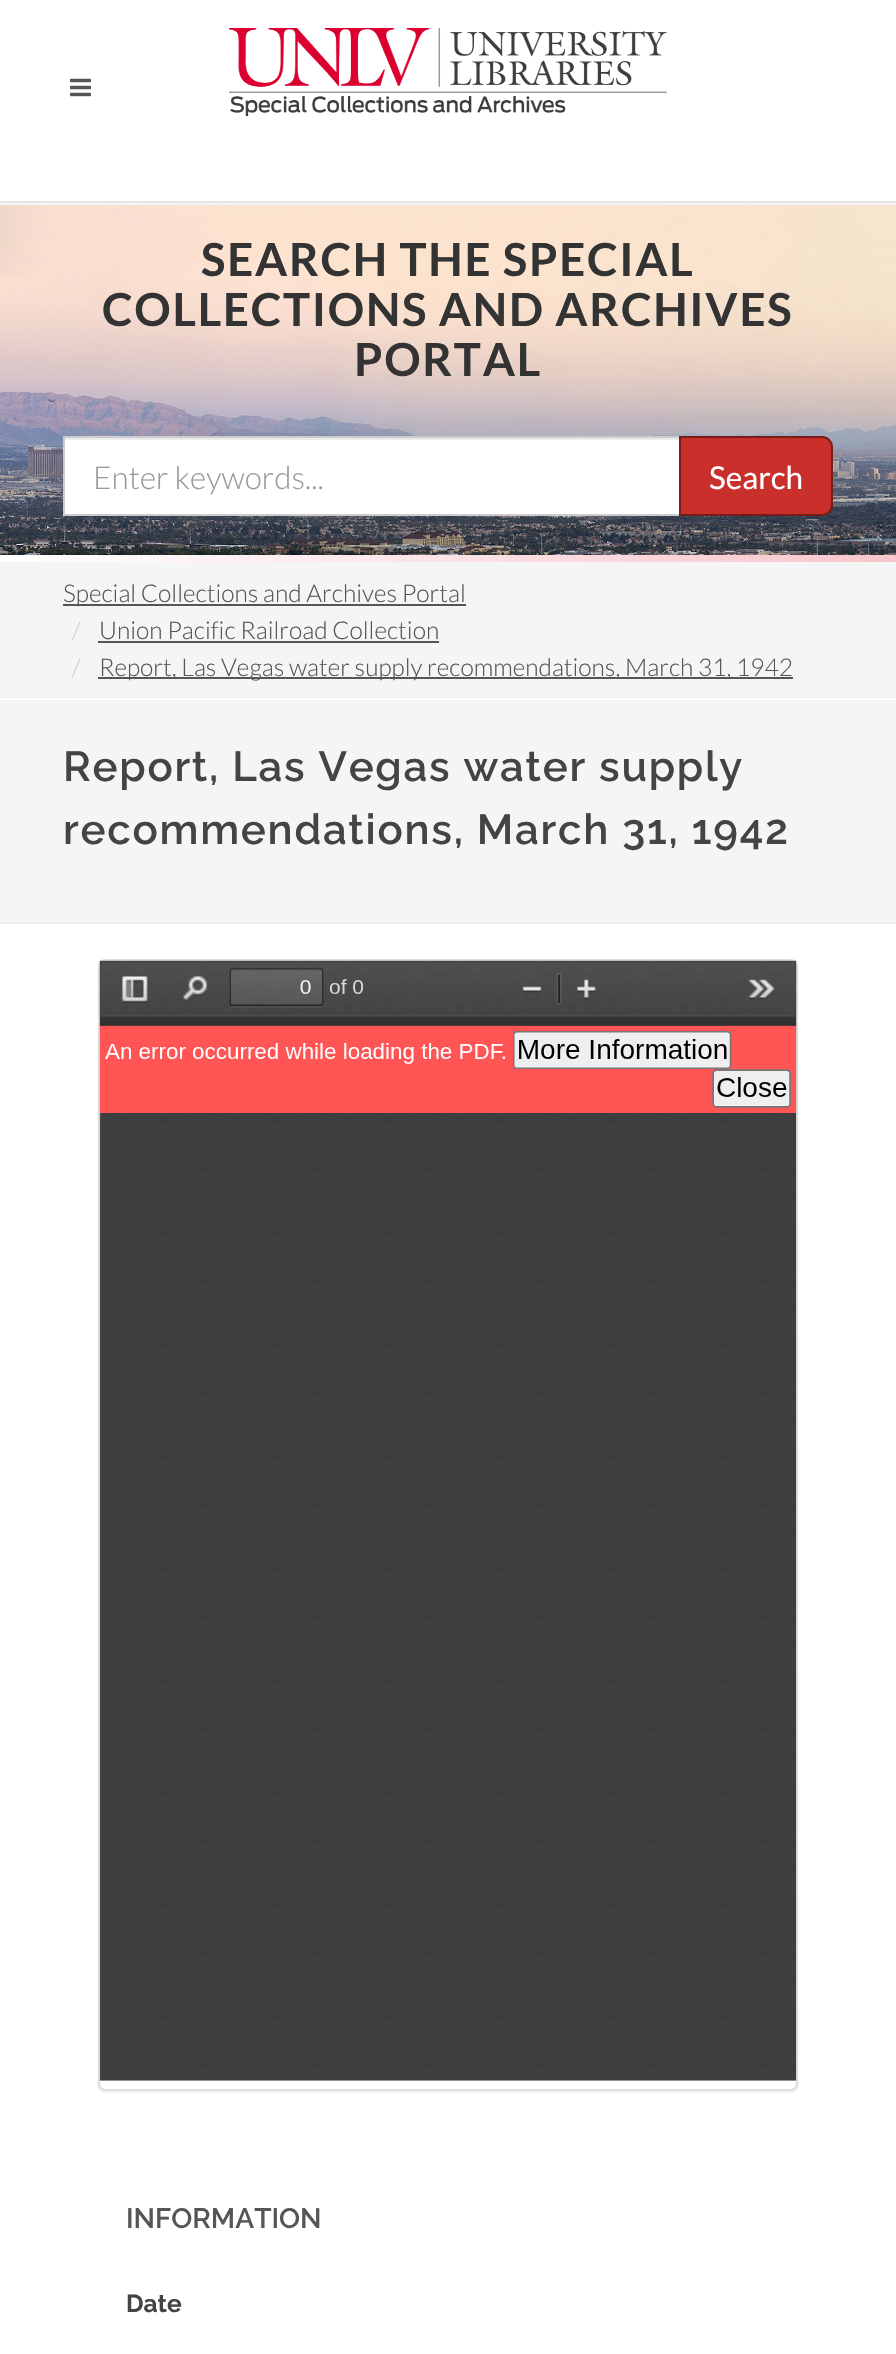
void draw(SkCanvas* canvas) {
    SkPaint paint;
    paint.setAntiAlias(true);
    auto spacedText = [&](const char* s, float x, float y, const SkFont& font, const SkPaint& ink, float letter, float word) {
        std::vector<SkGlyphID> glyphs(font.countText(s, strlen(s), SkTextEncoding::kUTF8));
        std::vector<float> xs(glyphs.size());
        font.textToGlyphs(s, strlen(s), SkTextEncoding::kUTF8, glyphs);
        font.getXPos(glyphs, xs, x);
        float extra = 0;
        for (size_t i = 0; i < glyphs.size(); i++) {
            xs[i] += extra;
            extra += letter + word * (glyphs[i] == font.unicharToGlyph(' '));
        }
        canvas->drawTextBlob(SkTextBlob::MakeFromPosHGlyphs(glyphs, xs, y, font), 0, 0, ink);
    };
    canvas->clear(0xFFFFFFFF);
    paint.setColor(0xFFF5F5F5);
    canvas->drawRect(SkRect::MakeXYWH(0, 203, 896, 2), paint);
    paint.setColor(0xFFE6E6E6);
    canvas->drawRect(SkRect::MakeXYWH(0, 201, 896, 2), paint);
    canvas->drawImageRect(SkImages::DeferredFromEncodedData(SkData::MakeFromFileName("img1.png")), SkRect::MakeXYWH(70, 78, 21, 19), SkSamplingOptions());
    canvas->drawImageRect(SkImages::DeferredFromEncodedData(SkData::MakeFromFileName("img2.png")), SkRect::MakeXYWH(229, 28, 438, 88), SkSamplingOptions());
    canvas->drawImageRect(SkImages::DeferredFromEncodedData(SkData::MakeFromFileName("img3.png")), SkRect::MakeXYWH(0, 205, 896, 350), SkSamplingOptions());
    SkFont font1(fontMgr->matchFamilyStyle("Lato", SkFontStyle::Bold()), 45.5f);
    font1.setSubpixel(true);
    paint.setColor(0xFF333333);
    spacedText("SEARCH THE SPECIAL", 201, 276, font1, paint, 1.75f, 0);
    spacedText("COLLECTIONS AND ARCHIVES", 102, 326, font1, paint, 1.75f, 0);
    spacedText("PORTAL", 354, 376, font1, paint, 1.75f, 0);
    paint.setColor(0xFFFFFFFF);
    canvas->drawRect(SkRect::MakeXYWH(65, 440, 614, 74), paint);
    paint.setColor(0xFFECECEC);
    canvas->drawRect(SkRect::MakeXYWH(65, 438, 614, 2), paint);
    paint.setStyle(SkPaint::kStroke_Style);
    paint.setStrokeWidth(2);
    paint.setColor(0xFFCCCCCC);
    canvas->drawRect(SkRect::MakeXYWH(64, 437, 616, 78), paint);
    SkFont font2(fontMgr->matchFamilyStyle("Lato", SkFontStyle(300, SkFontStyle::kNormal_Width, SkFontStyle::kUpright_Slant)), 31.5f);
    font2.setSubpixel(true);
    paint.setStyle(SkPaint::kFill_Style);
    paint.setColor(0xFF999999);
    canvas->drawString("Enter keywords...", 93, 489, font2, paint);
    paint.setColor(0xFFC9302C);
    canvas->drawPath(SkPathBuilder().moveTo(680, 437).lineTo(822, 437).cubicTo(827.5f, 437, 832, 441.5f, 832, 447).lineTo(832, 505).cubicTo(832, 510.5f, 827.5f, 515, 822, 515).lineTo(680, 515).close().detach(), paint);
    paint.setStyle(SkPaint::kStroke_Style);
    paint.setColor(0xFF761C19);
    canvas->drawPath(SkPathBuilder().moveTo(680, 437).lineTo(822, 437).cubicTo(827.5f, 437, 832, 441.5f, 832, 447).lineTo(832, 505).cubicTo(832, 510.5f, 827.5f, 515, 822, 515).lineTo(680, 515).close().detach(), paint);
    SkFont font3(fontMgr->matchFamilyStyle("Lato", SkFontStyle::Normal()), 31.5f);
    font3.setSubpixel(true);
    paint.setStyle(SkPaint::kFill_Style);
    paint.setColor(0xFFFFFFFF);
    canvas->drawString("Search", 709, 489, font3, paint);
    {
        const SkColor colors[] = {0xFFE31936, 0xFFFFFFFF};
        const float stops[] = {0, 1};
        const SkPoint ends[] = {{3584, 569}, {0, 569}};
        paint.setShader(SkGradientShader::MakeLinear(ends, colors, stops, 2, SkTileMode::kClamp));
        paint.setAlpha(255);
    }
    canvas->drawRect(SkRect::MakeXYWH(39, 555, 857, 7), paint);
    paint.setShader(nullptr);
    paint.setColor(0xFFF5F5F5);
    canvas->drawRect(SkRect::MakeXYWH(0, 562, 896, 135), paint);
    paint.setColor(0xFFEEEEEE);
    canvas->drawRect(SkRect::MakeXYWH(0, 697, 896, 1), paint);
    paint.setColor(0xFF555555);
    canvas->drawRect(SkRect::MakeXYWH(63, 604, 403, 2), paint);
    SkFont font4(fontMgr->matchFamilyStyle("Lato", SkFontStyle(300, SkFontStyle::kNormal_Width, SkFontStyle::kUpright_Slant)), 24.5f);
    font4.setSubpixel(true);
    canvas->drawString("Special Collections and Archives Portal", 63, 602, font4, paint);
    paint.setColor(0xFFCCCCCC);
    canvas->drawString("/", 72, 639, font4, paint);
    paint.setColor(0xFF555555);
    canvas->drawString("Union Pacific Railroad Collection", 99, 639, font4, paint);
    canvas->drawRect(SkRect::MakeXYWH(98, 641, 341, 2), paint);
    paint.setColor(0xFFCCCCCC);
    canvas->drawString("/", 72, 676, font4, paint);
    paint.setColor(0xFF555555);
    canvas->drawRect(SkRect::MakeXYWH(98, 677, 695, 2), paint);
    canvas->drawString("Report, Las Vegas water supply recommendations, March 31, 1942", 99, 676, font4, paint);
    paint.setColor(0xFFF5F5F5);
    canvas->drawRect(SkRect::MakeXYWH(0, 700, 896, 222), paint);
    paint.setColor(0xFFEEEEEE);
    canvas->drawRect(SkRect::MakeXYWH(0, 922, 896, 2), paint);
    SkFont font5(fontMgr->matchFamilyStyle("Raleway", SkFontStyle(600, SkFontStyle::kNormal_Width, SkFontStyle::kUpright_Slant)), 42);
    font5.setSubpixel(true);
    paint.setColor(0xFF444444);
    spacedText("Report, Las Vegas water supply", 63, 781, font5, paint, 1.75f, 0);
    spacedText("recommendations, March 31, 1942", 63, 844, font5, paint, 1.75f, 0);
    paint.setColor(0x0D000000);
    paint.setMaskFilter(SkMaskFilter::MakeBlur(kNormal_SkBlurStyle, 1));
    canvas->drawRoundRect(SkRect::MakeXYWH(98, 961, 700, 1132), 7, 7, paint);
    paint.setMaskFilter(nullptr);
    paint.setColor(0xFFFFFFFF);
    canvas->drawRoundRect(SkRect::MakeXYWH(99, 960, 698, 1130), 6, 6, paint);
    paint.setStyle(SkPaint::kStroke_Style);
    paint.setColor(0xFFDDDDDD);
    canvas->drawRoundRect(SkRect::MakeXYWH(99, 960, 698, 1130), 6, 6, paint);
    canvas->drawImageRect(SkImages::DeferredFromEncodedData(SkData::MakeFromFileName("img4.png")), SkRect::MakeXYWH(99, 960, 698, 1121), SkSamplingOptions());
    SkFont font6(fontMgr->matchFamilyStyle("Raleway", SkFontStyle(600, SkFontStyle::kNormal_Width, SkFontStyle::kUpright_Slant)), 28);
    font6.setSubpixel(true);
    paint.setStyle(SkPaint::kFill_Style);
    paint.setColor(0xFF555555);
    canvas->drawString("INFORMATION", 126, 2228, font6, paint);
    SkFont font7(fontMgr->matchFamilyStyle("Raleway", SkFontStyle::Bold()), 24.5f);
    font7.setSubpixel(true);
    paint.setColor(0xFF444444);
    canvas->drawString("Date", 126, 2312, font7, paint);
}
